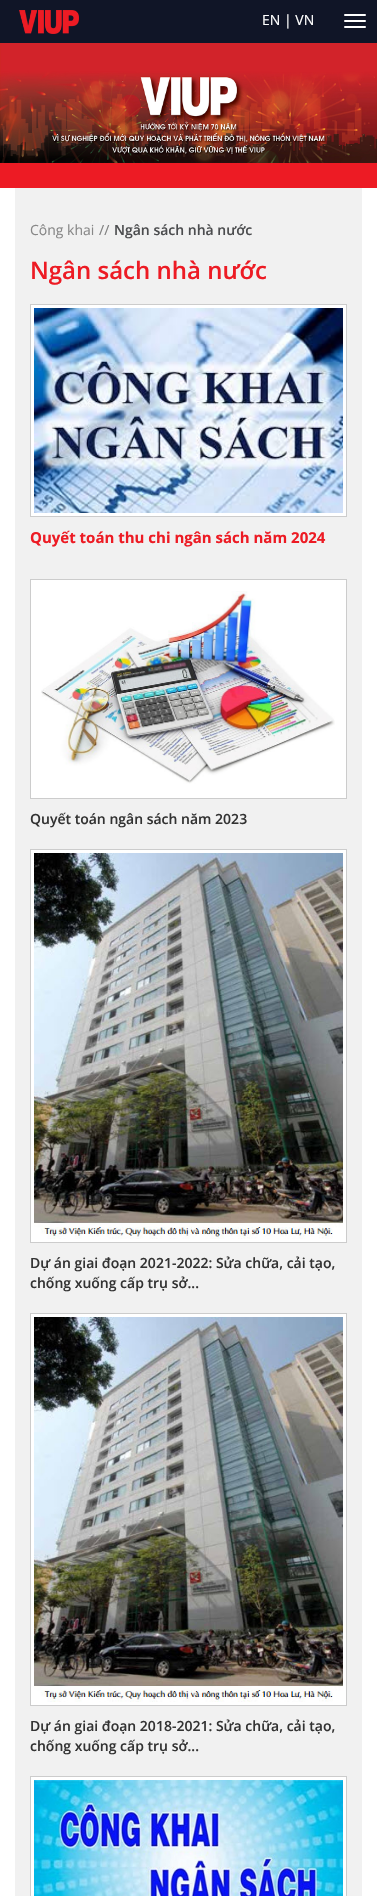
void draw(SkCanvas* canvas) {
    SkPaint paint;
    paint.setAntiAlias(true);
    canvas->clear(0xFFFFFFFF);
    paint.setColor(0xFF101527);
    canvas->drawRect(SkRect::MakeXYWH(0, 0, 377, 43), paint);
    canvas->drawImageRect(SkImages::DeferredFromEncodedData(SkData::MakeFromFileName("img1.png")), SkRect::MakeXYWH(19, 10, 60, 24), SkSamplingOptions());
    SkFont font1(fontMgr->matchFamilyStyle("Open Sans", SkFontStyle::Normal()), 14);
    font1.setSubpixel(true);
    paint.setColor(0xFFFFFFFF);
    canvas->drawString("EN | VN", 262, 25, font1, paint);
    canvas->drawRoundRect(SkRect::MakeXYWH(344, 14, 22, 2), 1, 1, paint);
    canvas->drawRoundRect(SkRect::MakeXYWH(344, 20, 22, 2), 1, 1, paint);
    canvas->drawRoundRect(SkRect::MakeXYWH(344, 26, 22, 2), 1, 1, paint);
    canvas->drawImageRect(SkImages::DeferredFromEncodedData(SkData::MakeFromFileName("img2.png")), SkRect::MakeXYWH(0, 43, 377, 120), SkSamplingOptions());
    paint.setColor(0xFFED1B24);
    canvas->drawRect(SkRect::MakeXYWH(0, 163, 377, 25), paint);
    paint.setColor(0xFFF1F1F1);
    canvas->drawRect(SkRect::MakeXYWH(15, 188, 347, 1708), paint);
    paint.setColor(0xFF888888);
    canvas->drawString("Công khai", 30, 235, font1, paint);
    paint.setColor(0xFF808080);
    canvas->drawString("//", 99, 235, font1, paint);
    SkFont font2(fontMgr->matchFamilyStyle("Open Sans", SkFontStyle(600, SkFontStyle::kNormal_Width, SkFontStyle::kUpright_Slant)), 14);
    font2.setSubpixel(true);
    paint.setColor(0xFF4C4D4F);
    canvas->drawString("Ngân sách nhà nước", 114, 235, font2, paint);
    SkFont font3(fontMgr->matchFamilyStyle("Open Sans", SkFontStyle(600, SkFontStyle::kNormal_Width, SkFontStyle::kUpright_Slant)), 24);
    font3.setSubpixel(true);
    paint.setColor(0xFFED1B24);
    canvas->drawString("Ngân sách nhà nước", 30, 279, font3, paint);
    paint.setColor(0xFFFFFFFF);
    canvas->drawRect(SkRect::MakeXYWH(30.5f, 304.5f, 316, 212), paint);
    paint.setStyle(SkPaint::kStroke_Style);
    paint.setStrokeWidth(1);
    paint.setColor(0xFFCCCCCC);
    canvas->drawRect(SkRect::MakeXYWH(30.5f, 304.5f, 316, 212), paint);
    canvas->drawImageRect(SkImages::DeferredFromEncodedData(SkData::MakeFromFileName("img3.png")), SkRect::MakeXYWH(34, 308, 309, 205), SkSamplingOptions());
    SkFont font4(fontMgr->matchFamilyStyle("Open Sans", SkFontStyle::Bold()), 15);
    font4.setSubpixel(true);
    paint.setStyle(SkPaint::kFill_Style);
    paint.setColor(0xFFED1B24);
    canvas->drawString("Quyết toán thu chi ngân sách năm 2024", 30, 543, font4, paint);
    paint.setColor(0xFFFFFFFF);
    canvas->drawRect(SkRect::MakeXYWH(30.5f, 579.5f, 316, 219), paint);
    paint.setStyle(SkPaint::kStroke_Style);
    paint.setColor(0xFFCCCCCC);
    canvas->drawRect(SkRect::MakeXYWH(30.5f, 579.5f, 316, 219), paint);
    canvas->drawImageRect(SkImages::DeferredFromEncodedData(SkData::MakeFromFileName("img4.png")), SkRect::MakeXYWH(41, 591, 294, 193), SkSamplingOptions());
    paint.setStyle(SkPaint::kFill_Style);
    paint.setColor(0xFF333333);
    canvas->drawString("Quyết toán ngân sách năm 2023", 30, 824, font2, paint);
    paint.setColor(0xFFFFFFFF);
    canvas->drawRect(SkRect::MakeXYWH(30.5f, 849.5f, 316, 393), paint);
    paint.setStyle(SkPaint::kStroke_Style);
    paint.setColor(0xFFCCCCCC);
    canvas->drawRect(SkRect::MakeXYWH(30.5f, 849.5f, 316, 393), paint);
    canvas->drawImageRect(SkImages::DeferredFromEncodedData(SkData::MakeFromFileName("img5.png")), SkRect::MakeXYWH(34, 853, 309, 386), SkSamplingOptions());
    paint.setStyle(SkPaint::kFill_Style);
    paint.setColor(0xFF333333);
    canvas->drawString("Dự án giai đoạn 2021-2022: Sửa chữa, cải tạo,", 30, 1268, font2, paint);
    canvas->drawString("chống xuống cấp trụ sở...", 30, 1288, font2, paint);
    paint.setColor(0xFFFFFFFF);
    canvas->drawRect(SkRect::MakeXYWH(30.5f, 1313.5f, 316, 392), paint);
    paint.setStyle(SkPaint::kStroke_Style);
    paint.setColor(0xFFCCCCCC);
    canvas->drawRect(SkRect::MakeXYWH(30.5f, 1313.5f, 316, 392), paint);
    canvas->drawImageRect(SkImages::DeferredFromEncodedData(SkData::MakeFromFileName("img6.png")), SkRect::MakeXYWH(34, 1317, 309, 385), SkSamplingOptions());
    paint.setStyle(SkPaint::kFill_Style);
    paint.setColor(0xFF333333);
    canvas->drawString("Dự án giai đoạn 2018-2021: Sửa chữa, cải tạo,", 30, 1731, font2, paint);
    canvas->drawString("chống xuống cấp trụ sở...", 30, 1751, font2, paint);
    paint.setColor(0xFFFFFFFF);
    canvas->drawRect(SkRect::MakeXYWH(30.5f, 1776.5f, 316, 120), paint);
    paint.setStyle(SkPaint::kStroke_Style);
    paint.setColor(0xFFCCCCCC);
    canvas->drawRect(SkRect::MakeXYWH(30.5f, 1776.5f, 316, 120), paint);
    canvas->drawImageRect(SkImages::DeferredFromEncodedData(SkData::MakeFromFileName("img7.png")), SkRect::MakeXYWH(34, 1780, 309, 116), SkSamplingOptions());
}
